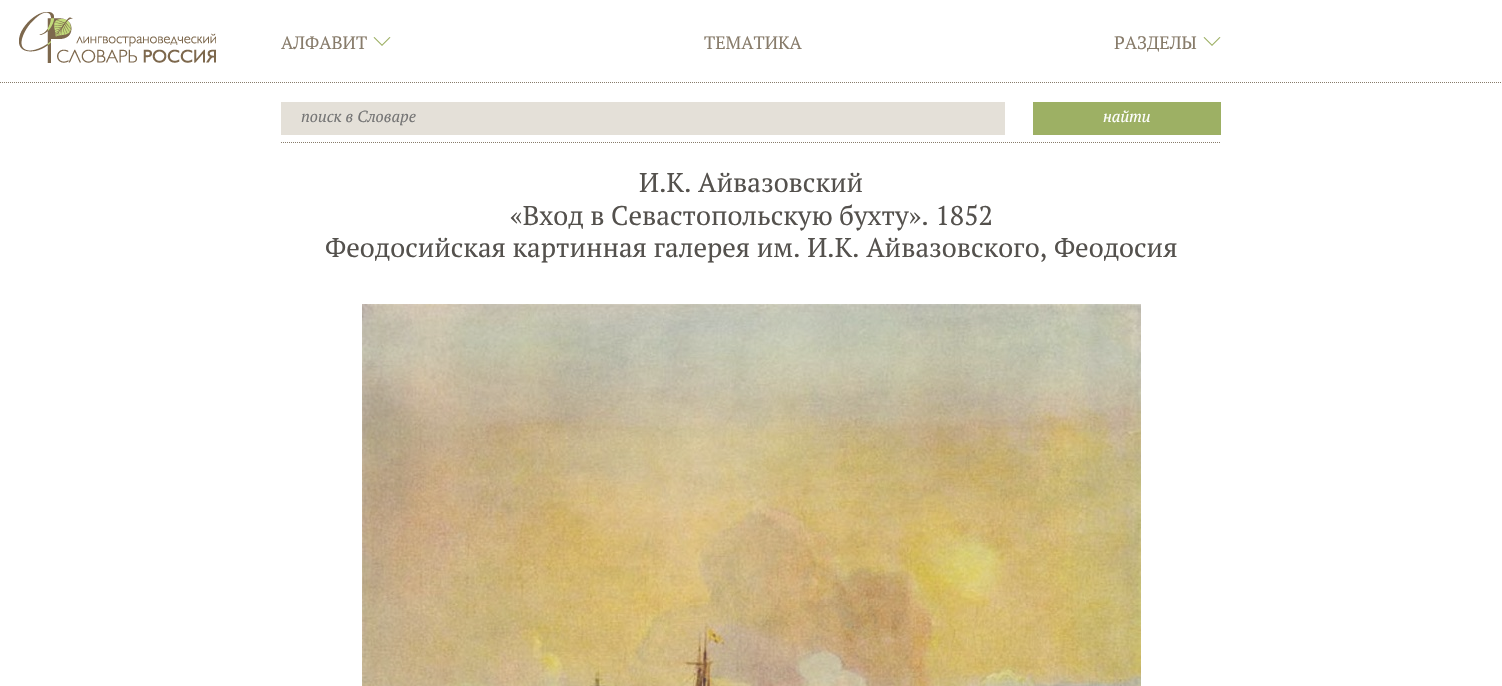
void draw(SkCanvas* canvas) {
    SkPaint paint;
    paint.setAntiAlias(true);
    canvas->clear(0xFFFFFFFF);
    canvas->drawImageRect(SkImages::DeferredFromEncodedData(SkData::MakeFromFileName("img1.png")), SkRect::MakeXYWH(19, 12, 197, 51), SkSamplingOptions());
    SkFont font1(fontMgr->matchFamilyStyle("PT Serif", SkFontStyle::Normal()), 18);
    font1.setSubpixel(true);
    paint.setColor(0xFF887C6B);
    canvas->drawString("АЛФАВИТ", 281, 49, font1, paint);
    paint.setColor(0xFF9DB064);
    canvas->drawPath(SkPathBuilder().moveTo(390.5f, 37.5f).lineTo(382, 46).lineTo(373.5f, 37.5f).lineTo(374.5f, 37).lineTo(382, 44.5f).lineTo(389.5f, 37).close().detach(), paint);
    paint.setColor(0xFF887C6B);
    canvas->drawString("ТЕМАТИКА", 704, 49, font1, paint);
    canvas->drawString("РАЗДЕЛЫ", 1114, 49, font1, paint);
    paint.setColor(0xFF9DB064);
    canvas->drawPath(SkPathBuilder().moveTo(1220.5f, 37.5f).lineTo(1212, 46).lineTo(1203.5f, 37.5f).lineTo(1204.5f, 37).lineTo(1212, 44.5f).lineTo(1219.5f, 37).close().detach(), paint);
    paint.setStyle(SkPaint::kStroke_Style);
    paint.setStrokeWidth(1);
    paint.setColor(0xFF887C6B);
    paint.setPathEffect(SkDashPathEffect::Make({{1, 1}}, 0));
    canvas->drawPath(SkPathBuilder().moveTo(0, 82.5f).lineTo(1502, 82.5f).detach(), paint);
    paint.setPathEffect(nullptr);
    paint.setPathEffect(SkDashPathEffect::Make({{1, 1}}, 0));
    canvas->drawPath(SkPathBuilder().moveTo(281, 142.5f).lineTo(1221, 142.5f).detach(), paint);
    paint.setPathEffect(nullptr);
    paint.setStyle(SkPaint::kFill_Style);
    paint.setColor(0xFFE4E0D8);
    canvas->drawRect(SkRect::MakeXYWH(281, 102, 724, 33), paint);
    SkFont font2(fontMgr->matchFamilyStyle("PT Serif", SkFontStyle::Italic()), 16);
    font2.setSubpixel(true);
    paint.setColor(0xFF757575);
    canvas->drawString("поиск в Словаре", 301, 122, font2, paint);
    paint.setColor(0xFF9DB064);
    canvas->drawRect(SkRect::MakeXYWH(1033, 102, 188, 33), paint);
    paint.setColor(0xFFFFFFFF);
    canvas->drawString("найти", 1103, 122, font2, paint);
    SkFont font3(fontMgr->matchFamilyStyle("PT Serif", SkFontStyle::Normal()), 27);
    font3.setSubpixel(true);
    paint.setColor(0xFF54514D);
    canvas->drawString("И.К. Айвазовский", 639, 192, font3, paint);
    canvas->drawString("«Вход в Севастопольскую бухту». 1852", 510, 225, font3, paint);
    canvas->drawString("Феодосийская картинная галерея им. И.К. Айвазовского, Феодосия", 325, 257, font3, paint);
    canvas->drawImageRect(SkImages::DeferredFromEncodedData(SkData::MakeFromFileName("img2.png")), SkRect::MakeXYWH(362, 304, 779, 382), SkSamplingOptions());
}
